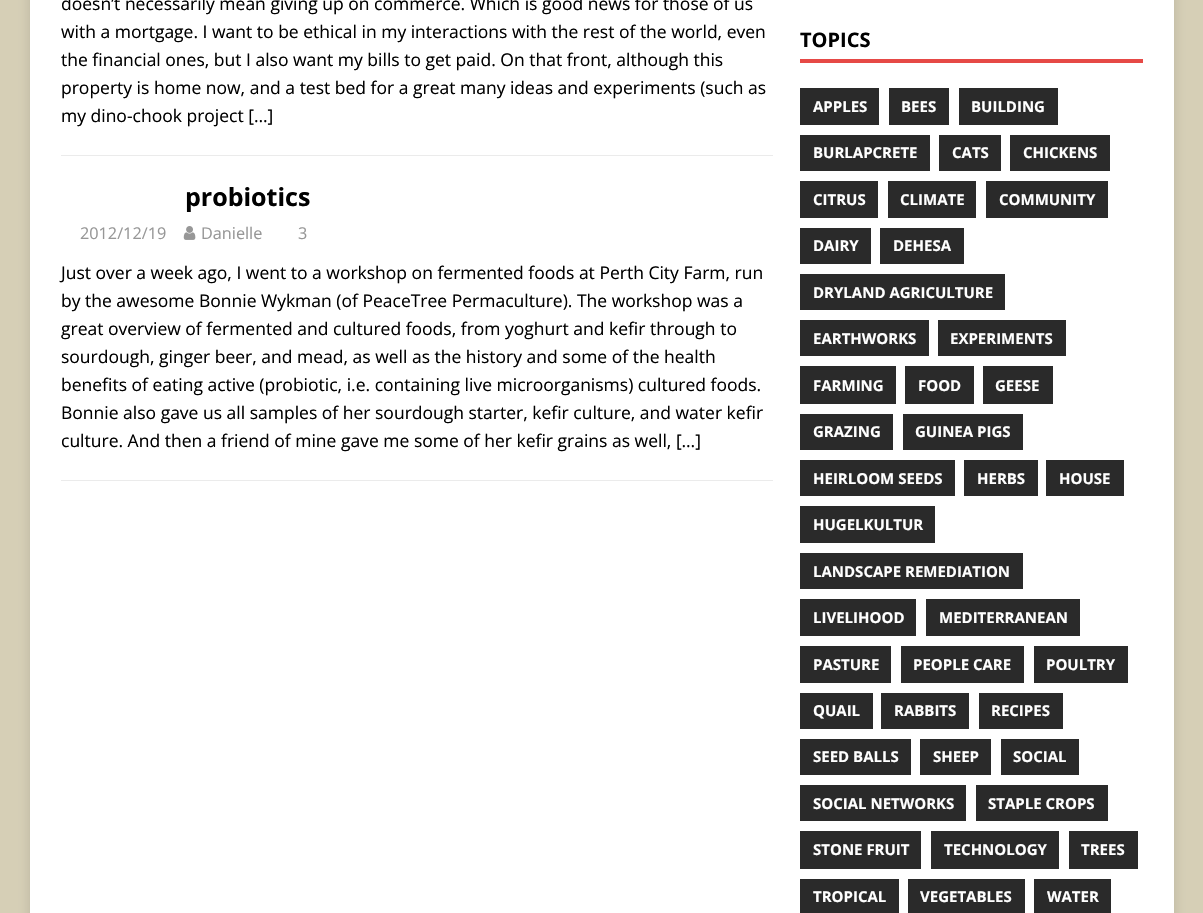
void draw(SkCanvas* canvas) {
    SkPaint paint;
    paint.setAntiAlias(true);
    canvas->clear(0xFFD6CFB6);
    paint.setColor(0x2B323232);
    paint.setMaskFilter(SkMaskFilter::MakeBlur(kNormal_SkBlurStyle, 6));
    canvas->drawRect(SkRect::MakeXYWH(30, -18, 1144, 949), paint);
    paint.setMaskFilter(nullptr);
    paint.setColor(0xFFFFFFFF);
    canvas->drawRect(SkRect::MakeXYWH(30, 0, 1144, 913), paint);
    paint.setColor(0xFFEBEBEB);
    canvas->drawRect(SkRect::MakeXYWH(61, 155, 712, 1), paint);
    SkFont font1(fontMgr->matchFamilyStyle("Open Sans", SkFontStyle::Normal()), 17.5f);
    font1.setSubpixel(true);
    paint.setColor(0xFF000000);
    canvas->drawString("doesn’t necessarily mean giving up on commerce. Which is good news for those of us", 61, 10, font1, paint);
    canvas->drawString("with a mortgage. I want to be ethical in my interactions with the rest of the world, even", 61, 38, font1, paint);
    canvas->drawString("the financial ones, but I also want my bills to get paid. On that front, although this", 61, 66, font1, paint);
    canvas->drawString("property is home now, and a test bed for a great many ideas and experiments (such as", 61, 94, font1, paint);
    canvas->drawString("my dino-chook project […]", 61, 122, font1, paint);
    paint.setColor(0xFFEBEBEB);
    canvas->drawRect(SkRect::MakeXYWH(61, 480, 712, 1), paint);
    SkFont font2(fontMgr->matchFamilyStyle("Open Sans", SkFontStyle::Bold()), 25);
    font2.setSubpixel(true);
    paint.setColor(0xFF000000);
    canvas->drawString("probiotics", 185, 206, font2, paint);
    SkFont font3(fontMgr->matchFamilyStyle("Open Sans", SkFontStyle::Normal()), 16.25f);
    font3.setSubpixel(true);
    paint.setColor(0xFF979797);
    canvas->drawString("2012/12/19", 80, 239, font3, paint);
    canvas->drawImageRect(SkImages::DeferredFromEncodedData(SkData::MakeFromFileName("img1.png")), SkRect::MakeXYWH(183, 226, 13, 14), SkSamplingOptions());
    canvas->drawString("Danielle", 201, 239, font3, paint);
    canvas->drawString("3", 298, 239, font3, paint);
    paint.setColor(0xFF000000);
    canvas->drawString("Just over a week ago, I went to a workshop on fermented foods at Perth City Farm, run", 61, 279, font1, paint);
    canvas->drawString("by the awesome Bonnie Wykman (of PeaceTree Permaculture). The workshop was a", 61, 307, font1, paint);
    canvas->drawString("great overview of fermented and cultured foods, from yoghurt and kefir through to", 61, 335, font1, paint);
    canvas->drawString("sourdough, ginger beer, and mead, as well as the history and some of the health", 61, 363, font1, paint);
    canvas->drawString("benefits of eating active (probiotic, i.e. containing live microorganisms) cultured foods.", 61, 391, font1, paint);
    canvas->drawString("Bonnie also gave us all samples of her sourdough starter, kefir culture, and water kefir", 61, 419, font1, paint);
    canvas->drawString("culture. And then a friend of mine gave me some of her kefir grains as well, […]", 61, 447, font1, paint);
    paint.setColor(0xFFE64946);
    canvas->drawRect(SkRect::MakeXYWH(800, 59, 343, 4), paint);
    SkFont font4(fontMgr->matchFamilyStyle("Open Sans", SkFontStyle::Bold()), 20);
    font4.setSubpixel(true);
    paint.setColor(0xFF000000);
    canvas->drawString("TOPICS", 800, 47, font4, paint);
    paint.setColor(0xFF2A2A2A);
    canvas->drawRect(SkRect::MakeXYWH(800, 88, 79, 37), paint);
    SkFont font5(fontMgr->matchFamilyStyle("Open Sans", SkFontStyle::Bold()), 15);
    font5.setSubpixel(true);
    paint.setColor(0xFFFFFFFF);
    canvas->drawString("APPLES", 813, 112, font5, paint);
    paint.setColor(0xFF2A2A2A);
    canvas->drawRect(SkRect::MakeXYWH(889, 88, 60, 37), paint);
    paint.setColor(0xFFFFFFFF);
    canvas->drawString("BEES", 901, 112, font5, paint);
    paint.setColor(0xFF2A2A2A);
    canvas->drawRect(SkRect::MakeXYWH(959, 88, 99, 37), paint);
    paint.setColor(0xFFFFFFFF);
    canvas->drawString("BUILDING", 971, 112, font5, paint);
    paint.setColor(0xFF2A2A2A);
    canvas->drawRect(SkRect::MakeXYWH(800, 135, 130, 36), paint);
    paint.setColor(0xFFFFFFFF);
    canvas->drawString("BURLAPCRETE", 813, 158, font5, paint);
    paint.setColor(0xFF2A2A2A);
    canvas->drawRect(SkRect::MakeXYWH(939, 135, 62, 36), paint);
    paint.setColor(0xFFFFFFFF);
    canvas->drawString("CATS", 952, 158, font5, paint);
    paint.setColor(0xFF2A2A2A);
    canvas->drawRect(SkRect::MakeXYWH(1010, 135, 100, 36), paint);
    paint.setColor(0xFFFFFFFF);
    canvas->drawString("CHICKENS", 1023, 158, font5, paint);
    paint.setColor(0xFF2A2A2A);
    canvas->drawRect(SkRect::MakeXYWH(800, 181, 78, 37), paint);
    paint.setColor(0xFFFFFFFF);
    canvas->drawString("CITRUS", 813, 205, font5, paint);
    paint.setColor(0xFF2A2A2A);
    canvas->drawRect(SkRect::MakeXYWH(888, 181, 88, 37), paint);
    paint.setColor(0xFFFFFFFF);
    canvas->drawString("CLIMATE", 900, 205, font5, paint);
    paint.setColor(0xFF2A2A2A);
    canvas->drawRect(SkRect::MakeXYWH(986, 181, 122, 37), paint);
    paint.setColor(0xFFFFFFFF);
    canvas->drawString("COMMUNITY", 999, 205, font5, paint);
    paint.setColor(0xFF2A2A2A);
    canvas->drawRect(SkRect::MakeXYWH(800, 228, 71, 36), paint);
    paint.setColor(0xFFFFFFFF);
    canvas->drawString("DAIRY", 813, 251, font5, paint);
    paint.setColor(0xFF2A2A2A);
    canvas->drawRect(SkRect::MakeXYWH(880, 228, 84, 36), paint);
    paint.setColor(0xFFFFFFFF);
    canvas->drawString("DEHESA", 893, 251, font5, paint);
    paint.setColor(0xFF2A2A2A);
    canvas->drawRect(SkRect::MakeXYWH(800, 274, 205, 36), paint);
    paint.setColor(0xFFFFFFFF);
    canvas->drawString("DRYLAND AGRICULTURE", 813, 298, font5, paint);
    paint.setColor(0xFF2A2A2A);
    canvas->drawRect(SkRect::MakeXYWH(800, 320, 129, 36), paint);
    paint.setColor(0xFFFFFFFF);
    canvas->drawString("EARTHWORKS", 813, 344, font5, paint);
    paint.setColor(0xFF2A2A2A);
    canvas->drawRect(SkRect::MakeXYWH(938, 320, 128, 36), paint);
    paint.setColor(0xFFFFFFFF);
    canvas->drawString("EXPERIMENTS", 950, 344, font5, paint);
    paint.setColor(0xFF2A2A2A);
    canvas->drawRect(SkRect::MakeXYWH(800, 366, 96, 38), paint);
    paint.setColor(0xFFFFFFFF);
    canvas->drawString("FARMING", 813, 391, font5, paint);
    paint.setColor(0xFF2A2A2A);
    canvas->drawRect(SkRect::MakeXYWH(905, 366, 69, 38), paint);
    paint.setColor(0xFFFFFFFF);
    canvas->drawString("FOOD", 918, 391, font5, paint);
    paint.setColor(0xFF2A2A2A);
    canvas->drawRect(SkRect::MakeXYWH(983, 366, 70, 38), paint);
    paint.setColor(0xFFFFFFFF);
    canvas->drawString("GEESE", 995, 391, font5, paint);
    paint.setColor(0xFF2A2A2A);
    canvas->drawRect(SkRect::MakeXYWH(800, 414, 93, 36), paint);
    paint.setColor(0xFFFFFFFF);
    canvas->drawString("GRAZING", 813, 437, font5, paint);
    paint.setColor(0xFF2A2A2A);
    canvas->drawRect(SkRect::MakeXYWH(903, 414, 120, 36), paint);
    paint.setColor(0xFFFFFFFF);
    canvas->drawString("GUINEA PIGS", 915, 437, font5, paint);
    paint.setColor(0xFF2A2A2A);
    canvas->drawRect(SkRect::MakeXYWH(800, 460, 155, 36), paint);
    paint.setColor(0xFFFFFFFF);
    canvas->drawString("HEIRLOOM SEEDS", 813, 484, font5, paint);
    paint.setColor(0xFF2A2A2A);
    canvas->drawRect(SkRect::MakeXYWH(964, 460, 74, 36), paint);
    paint.setColor(0xFFFFFFFF);
    canvas->drawString("HERBS", 977, 484, font5, paint);
    paint.setColor(0xFF2A2A2A);
    canvas->drawRect(SkRect::MakeXYWH(1046, 460, 78, 36), paint);
    paint.setColor(0xFFFFFFFF);
    canvas->drawString("HOUSE", 1059, 484, font5, paint);
    paint.setColor(0xFF2A2A2A);
    canvas->drawRect(SkRect::MakeXYWH(800, 506, 135, 37), paint);
    paint.setColor(0xFFFFFFFF);
    canvas->drawString("HUGELKULTUR", 813, 530, font5, paint);
    paint.setColor(0xFF2A2A2A);
    canvas->drawRect(SkRect::MakeXYWH(800, 553, 223, 36), paint);
    paint.setColor(0xFFFFFFFF);
    canvas->drawString("LANDSCAPE REMEDIATION", 813, 577, font5, paint);
    paint.setColor(0xFF2A2A2A);
    canvas->drawRect(SkRect::MakeXYWH(800, 599, 116, 37), paint);
    paint.setColor(0xFFFFFFFF);
    canvas->drawString("LIVELIHOOD", 813, 623, font5, paint);
    paint.setColor(0xFF2A2A2A);
    canvas->drawRect(SkRect::MakeXYWH(926, 599, 154, 37), paint);
    paint.setColor(0xFFFFFFFF);
    canvas->drawString("MEDITERRANEAN", 939, 623, font5, paint);
    paint.setColor(0xFF2A2A2A);
    canvas->drawRect(SkRect::MakeXYWH(800, 646, 91, 37), paint);
    paint.setColor(0xFFFFFFFF);
    canvas->drawString("PASTURE", 813, 670, font5, paint);
    paint.setColor(0xFF2A2A2A);
    canvas->drawRect(SkRect::MakeXYWH(901, 646, 123, 37), paint);
    paint.setColor(0xFFFFFFFF);
    canvas->drawString("PEOPLE CARE", 913, 670, font5, paint);
    paint.setColor(0xFF2A2A2A);
    canvas->drawRect(SkRect::MakeXYWH(1034, 646, 94, 37), paint);
    paint.setColor(0xFFFFFFFF);
    canvas->drawString("POULTRY", 1046, 670, font5, paint);
    paint.setColor(0xFF2A2A2A);
    canvas->drawRect(SkRect::MakeXYWH(800, 693, 73, 36), paint);
    paint.setColor(0xFFFFFFFF);
    canvas->drawString("QUAIL", 813, 716, font5, paint);
    paint.setColor(0xFF2A2A2A);
    canvas->drawRect(SkRect::MakeXYWH(881, 693, 88, 36), paint);
    paint.setColor(0xFFFFFFFF);
    canvas->drawString("RABBITS", 894, 716, font5, paint);
    paint.setColor(0xFF2A2A2A);
    canvas->drawRect(SkRect::MakeXYWH(979, 693, 84, 36), paint);
    paint.setColor(0xFFFFFFFF);
    canvas->drawString("RECIPES", 991, 716, font5, paint);
    paint.setColor(0xFF2A2A2A);
    canvas->drawRect(SkRect::MakeXYWH(800, 739, 111, 36), paint);
    paint.setColor(0xFFFFFFFF);
    canvas->drawString("SEED BALLS", 813, 762, font5, paint);
    paint.setColor(0xFF2A2A2A);
    canvas->drawRect(SkRect::MakeXYWH(920, 739, 71, 36), paint);
    paint.setColor(0xFFFFFFFF);
    canvas->drawString("SHEEP", 933, 762, font5, paint);
    paint.setColor(0xFF2A2A2A);
    canvas->drawRect(SkRect::MakeXYWH(1001, 739, 78, 36), paint);
    paint.setColor(0xFFFFFFFF);
    canvas->drawString("SOCIAL", 1013, 762, font5, paint);
    paint.setColor(0xFF2A2A2A);
    canvas->drawRect(SkRect::MakeXYWH(800, 785, 166, 36), paint);
    paint.setColor(0xFFFFFFFF);
    canvas->drawString("SOCIAL NETWORKS", 813, 809, font5, paint);
    paint.setColor(0xFF2A2A2A);
    canvas->drawRect(SkRect::MakeXYWH(976, 785, 132, 36), paint);
    paint.setColor(0xFFFFFFFF);
    canvas->drawString("STAPLE CROPS", 988, 809, font5, paint);
    paint.setColor(0xFF2A2A2A);
    canvas->drawRect(SkRect::MakeXYWH(800, 831, 121, 38), paint);
    paint.setColor(0xFFFFFFFF);
    canvas->drawString("STONE FRUIT", 813, 855, font5, paint);
    paint.setColor(0xFF2A2A2A);
    canvas->drawRect(SkRect::MakeXYWH(931, 831, 128, 38), paint);
    paint.setColor(0xFFFFFFFF);
    canvas->drawString("TECHNOLOGY", 944, 855, font5, paint);
    paint.setColor(0xFF2A2A2A);
    canvas->drawRect(SkRect::MakeXYWH(1069, 831, 69, 38), paint);
    paint.setColor(0xFFFFFFFF);
    canvas->drawString("TREES", 1081, 855, font5, paint);
    paint.setColor(0xFF2A2A2A);
    canvas->drawRect(SkRect::MakeXYWH(800, 879, 99, 34), paint);
    paint.setColor(0xFFFFFFFF);
    canvas->drawString("TROPICAL", 813, 902, font5, paint);
    paint.setColor(0xFF2A2A2A);
    canvas->drawRect(SkRect::MakeXYWH(908, 879, 117, 34), paint);
    paint.setColor(0xFFFFFFFF);
    canvas->drawString("VEGETABLES", 920, 902, font5, paint);
    paint.setColor(0xFF2A2A2A);
    canvas->drawRect(SkRect::MakeXYWH(1034, 879, 77, 34), paint);
    paint.setColor(0xFFFFFFFF);
    canvas->drawString("WATER", 1047, 902, font5, paint);
}
